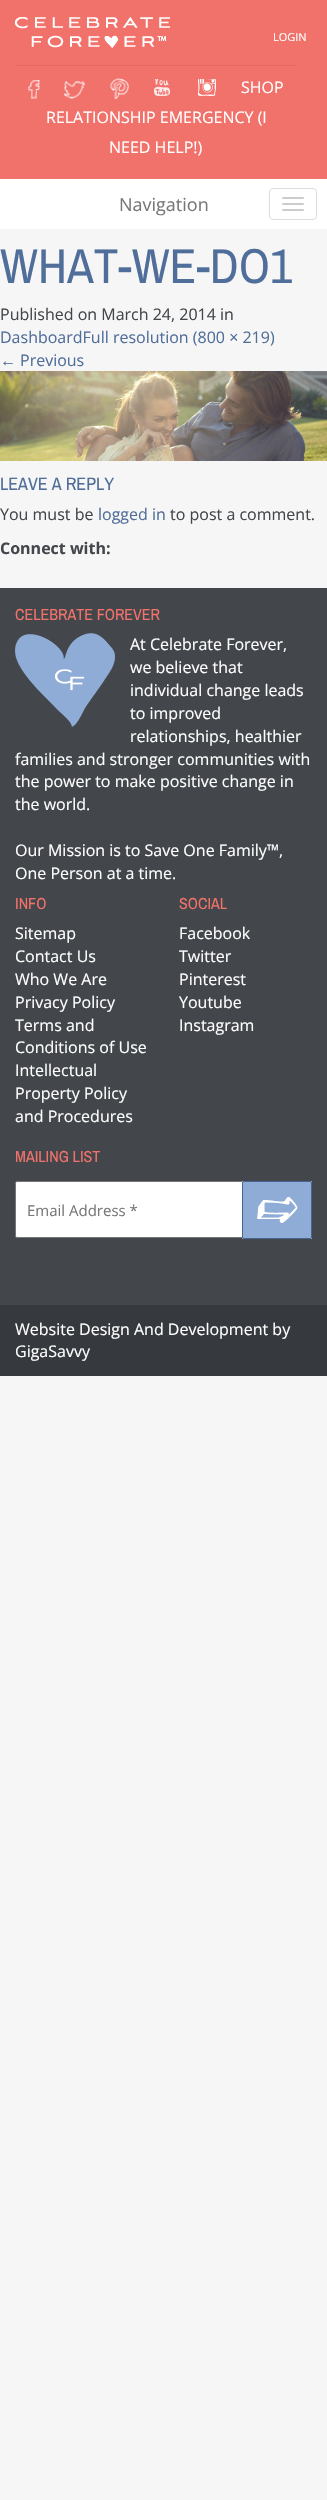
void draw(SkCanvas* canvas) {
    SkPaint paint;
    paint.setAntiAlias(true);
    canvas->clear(0xFFF6F6F6);
    paint.setColor(0xFFF1716B);
    canvas->drawRect(SkRect::MakeXYWH(0, 0, 327, 179), paint);
    canvas->drawImageRect(SkImages::DeferredFromEncodedData(SkData::MakeFromFileName("img1.png")), SkRect::MakeXYWH(15, 17, 155, 31), SkSamplingOptions());
    SkFont font1(fontMgr->matchFamilyStyle("Open Sans", SkFontStyle::Normal()), 11);
    font1.setSubpixel(true);
    paint.setColor(0xFFFFFFFF);
    canvas->drawString("LOGIN", 273, 41, font1, paint);
    paint.setColor(0xFFE86864);
    canvas->drawRect(SkRect::MakeXYWH(15, 65, 282, 1), paint);
    canvas->drawImageRect(SkImages::DeferredFromEncodedData(SkData::MakeFromFileName("img2.png")), SkRect::MakeXYWH(28, 80, 12, 19), SkSamplingOptions());
    canvas->drawImageRect(SkImages::DeferredFromEncodedData(SkData::MakeFromFileName("img3.png")), SkRect::MakeXYWH(64, 81, 21, 18), SkSamplingOptions());
    canvas->drawImageRect(SkImages::DeferredFromEncodedData(SkData::MakeFromFileName("img4.png")), SkRect::MakeXYWH(110, 78, 19, 21), SkSamplingOptions());
    canvas->drawImageRect(SkImages::DeferredFromEncodedData(SkData::MakeFromFileName("img5.png")), SkRect::MakeXYWH(154, 79, 16, 17), SkSamplingOptions());
    canvas->drawImageRect(SkImages::DeferredFromEncodedData(SkData::MakeFromFileName("img6.png")), SkRect::MakeXYWH(198, 79, 18, 17), SkSamplingOptions());
    SkFont font2(fontMgr->matchFamilyStyle("Open Sans", SkFontStyle::Normal()), 16);
    font2.setSubpixel(true);
    paint.setColor(0xFFFFFFFF);
    canvas->drawString("SHOP", 241, 93, font2, paint);
    canvas->drawString("RELATIONSHIP EMERGENCY (I", 46, 123, font2, paint);
    canvas->drawString("NEED HELP!)", 109, 153, font2, paint);
    canvas->drawRect(SkRect::MakeXYWH(0, 179, 327, 50), paint);
    SkFont font3(fontMgr->matchFamilyStyle("Open Sans", SkFontStyle::Normal()), 18);
    font3.setSubpixel(true);
    paint.setColor(0xFF777777);
    canvas->drawString("Navigation", 119, 211, font3, paint);
    paint.setStyle(SkPaint::kStroke_Style);
    paint.setStrokeWidth(1);
    paint.setColor(0xFFDDDDDD);
    canvas->drawRoundRect(SkRect::MakeXYWH(269.5f, 188.5f, 47, 31), 3.5f, 3.5f, paint);
    paint.setStyle(SkPaint::kFill_Style);
    paint.setColor(0xFFCCCCCC);
    canvas->drawRoundRect(SkRect::MakeXYWH(282, 197, 22, 2), 1, 1, paint);
    canvas->drawRoundRect(SkRect::MakeXYWH(282, 203, 22, 2), 1, 1, paint);
    canvas->drawRoundRect(SkRect::MakeXYWH(282, 209, 22, 2), 1, 1, paint);
    SkFont font4(fontMgr->matchFamilyStyle("Archivo Narrow", SkFontStyle::Normal()), 49);
    font4.setSubpixel(true);
    paint.setColor(0xFF506E9A);
    canvas->drawString("WHAT-WE-DO1", 0, 283, font4, paint);
    paint.setColor(0xFF43474B);
    canvas->drawString("Published on March 24, 2014 in", 0, 320, font2, paint);
    paint.setColor(0xFF506E9A);
    canvas->drawString("DashboardFull resolution (800 × 219)", 0, 343, font2, paint);
    SkFont font5(fontMgr->matchFamilyStyle("Liberation Serif", SkFontStyle::Normal()), 16);
    font5.setSubpixel(true);
    canvas->drawString("←", 0, 366, font5, paint);
    canvas->drawString("Previous", 20, 366, font2, paint);
    canvas->drawImageRect(SkImages::DeferredFromEncodedData(SkData::MakeFromFileName("img7.png")), SkRect::MakeXYWH(0, 371, 327, 90), SkSamplingOptions());
    SkFont font6(fontMgr->matchFamilyStyle("Archivo Narrow", SkFontStyle::Normal()), 18);
    font6.setSubpixel(true);
    canvas->drawString("LEAVE A REPLY", 0, 490, font6, paint);
    paint.setColor(0xFF43474B);
    canvas->drawString("You must be", 0, 520, font2, paint);
    paint.setColor(0xFF506E9A);
    canvas->drawString("logged in", 98, 520, font2, paint);
    paint.setColor(0xFF43474B);
    canvas->drawString("to post a comment.", 170, 520, font2, paint);
    SkFont font7(fontMgr->matchFamilyStyle("Open Sans", SkFontStyle::Bold()), 16);
    font7.setSubpixel(true);
    canvas->drawString("Connect with:", 0, 554, font7, paint);
    canvas->drawRect(SkRect::MakeXYWH(0, 588, 327, 717), paint);
    SkFont font8(fontMgr->matchFamilyStyle("Archivo Narrow", SkFontStyle::Normal()), 16);
    font8.setSubpixel(true);
    paint.setColor(0xFFF1716B);
    canvas->drawString("CELEBRATE FOREVER", 15, 620, font8, paint);
    canvas->drawImageRect(SkImages::DeferredFromEncodedData(SkData::MakeFromFileName("img8.png")), SkRect::MakeXYWH(15, 633, 100, 94), SkSamplingOptions());
    paint.setColor(0xFFFFFFFF);
    canvas->drawString("At Celebrate Forever,", 130, 650, font2, paint);
    canvas->drawString("we believe that", 130, 673, font2, paint);
    canvas->drawString("individual change leads", 130, 696, font2, paint);
    canvas->drawString("to improved", 130, 719, font2, paint);
    canvas->drawString("relationships, healthier", 130, 742, font2, paint);
    canvas->drawString("families and stronger communities with", 15, 765, font2, paint);
    canvas->drawString("the power to make positive change in", 15, 787, font2, paint);
    canvas->drawString("the world.", 15, 810, font2, paint);
    canvas->drawString("Our Mission is to Save One Family™,", 15, 856, font2, paint);
    canvas->drawString("One Person at a time.", 15, 879, font2, paint);
    paint.setColor(0xFFF1716B);
    canvas->drawString("INFO", 15, 909, font8, paint);
    paint.setColor(0xFFFFFFFF);
    canvas->drawString("Sitemap", 15, 939, font2, paint);
    canvas->drawString("Contact Us", 15, 962, font2, paint);
    canvas->drawString("Who We Are", 15, 985, font2, paint);
    canvas->drawString("Privacy Policy", 15, 1008, font2, paint);
    canvas->drawString("Terms and", 15, 1031, font2, paint);
    canvas->drawString("Conditions of Use", 15, 1053, font2, paint);
    canvas->drawString("Intellectual", 15, 1076, font2, paint);
    canvas->drawString("Property Policy", 15, 1099, font2, paint);
    canvas->drawString("and Procedures", 15, 1122, font2, paint);
    paint.setColor(0xFFF1716B);
    canvas->drawString("SOCIAL", 179, 909, font8, paint);
    paint.setColor(0xFFFFFFFF);
    canvas->drawString("Facebook", 179, 939, font2, paint);
    canvas->drawString("Twitter", 179, 962, font2, paint);
    canvas->drawString("Pinterest", 179, 985, font2, paint);
    canvas->drawString("Youtube", 179, 1008, font2, paint);
    canvas->drawString("Instagram", 179, 1031, font2, paint);
    paint.setColor(0xFFF1716B);
    canvas->drawString("MAILING LIST", 15, 1162, font8, paint);
    paint.setColor(0xFFFFFFFF);
    canvas->drawRoundRect(SkRect::MakeXYWH(15.5f, 1181.5f, 228, 56), 1.5f, 1.5f, paint);
    paint.setStyle(SkPaint::kStroke_Style);
    paint.setColor(0xFF767676);
    canvas->drawRoundRect(SkRect::MakeXYWH(15.5f, 1181.5f, 228, 56), 1.5f, 1.5f, paint);
    SkFont font9(fontMgr->matchFamilyStyle("Open Sans", SkFontStyle::Normal()), 15);
    font9.setSubpixel(true);
    paint.setStyle(SkPaint::kFill_Style);
    paint.setColor(0xFF777777);
    canvas->drawString("Email Address *", 27, 1216, font9, paint);
    canvas->drawImageRect(SkImages::DeferredFromEncodedData(SkData::MakeFromFileName("img9.png")), SkRect::MakeXYWH(242, 1181, 70, 58), SkSamplingOptions());
    paint.setColor(0xFF363A3E);
    canvas->drawRect(SkRect::MakeXYWH(0, 1305, 327, 71), paint);
    paint.setColor(0xFFFFFFFF);
    canvas->drawString("Website Design And Development by", 15, 1335, font2, paint);
    canvas->drawString("GigaSavvy", 15, 1357, font2, paint);
}
